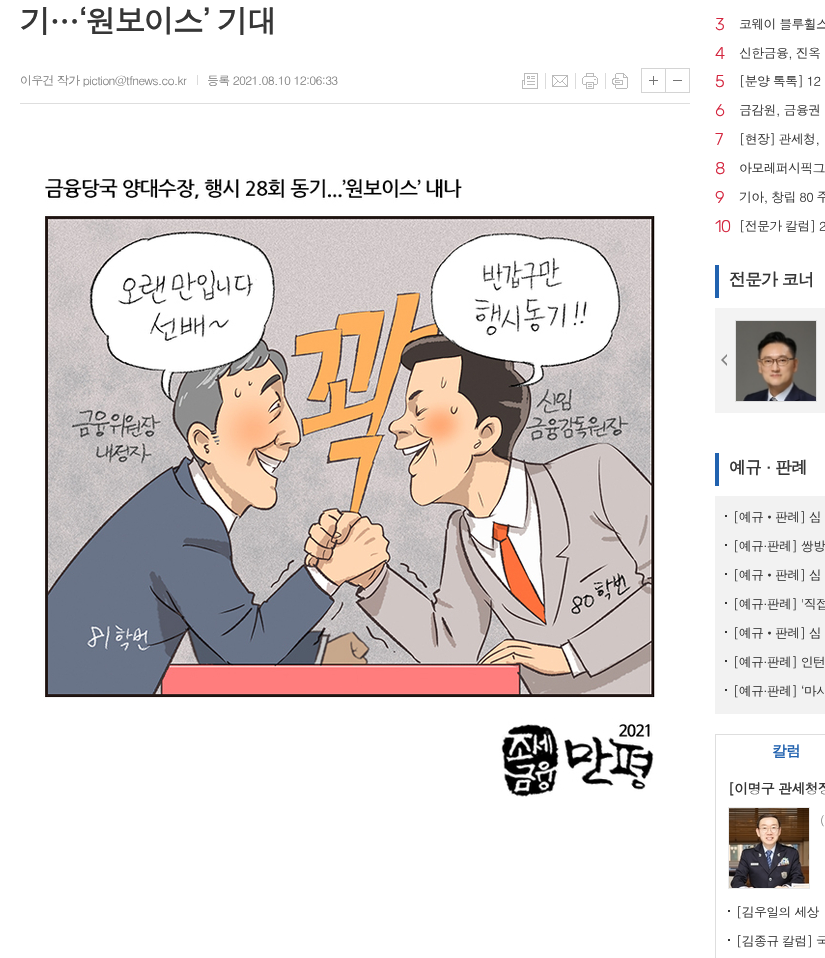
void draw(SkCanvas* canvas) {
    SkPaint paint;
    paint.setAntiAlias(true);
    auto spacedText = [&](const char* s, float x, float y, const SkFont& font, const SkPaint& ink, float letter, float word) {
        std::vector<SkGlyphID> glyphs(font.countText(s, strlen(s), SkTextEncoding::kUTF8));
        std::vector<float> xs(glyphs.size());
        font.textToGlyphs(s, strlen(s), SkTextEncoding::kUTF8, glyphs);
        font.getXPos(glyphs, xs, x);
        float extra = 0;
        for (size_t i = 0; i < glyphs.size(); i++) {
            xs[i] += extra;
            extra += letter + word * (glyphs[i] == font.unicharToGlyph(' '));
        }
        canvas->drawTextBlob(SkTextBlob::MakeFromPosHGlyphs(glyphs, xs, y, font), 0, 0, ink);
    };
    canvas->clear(0xFFFFFFFF);
    SkFont font1(fontMgr->matchFamilyStyle("Dotum", SkFontStyle::Bold()), 31);
    font1.setSubpixel(true);
    paint.setColor(0xFF363636);
    spacedText("기…‘원보이스’ 기대", 20, 33, font1, paint, -1.9f, 0);
    paint.setColor(0xFFDEDEDE);
    canvas->drawRect(SkRect::MakeXYWH(20, 103, 670, 1), paint);
    SkFont font2(fontMgr->matchFamilyStyle("Dotum", SkFontStyle::Normal()), 12);
    font2.setSubpixel(true);
    paint.setColor(0xFF808080);
    spacedText("이우건 작가 piction@tfnews.co.kr", 20, 85, font2, paint, -0.75f, 0);
    paint.setColor(0xFFDBDBDB);
    canvas->drawRect(SkRect::MakeXYWH(197, 75, 1, 10), paint);
    paint.setColor(0xFF808080);
    spacedText("등록 2021.08.10 12:06:33", 207, 85, font2, paint, -0.75f, 0);
    canvas->drawImageRect(SkImages::DeferredFromEncodedData(SkData::MakeFromFileName("img1.png")), SkRect::MakeXYWH(522, 73, 16, 16), SkSamplingOptions());
    paint.setColor(0xFFDBDBDB);
    canvas->drawRect(SkRect::MakeXYWH(545, 73, 1, 16), paint);
    canvas->drawImageRect(SkImages::DeferredFromEncodedData(SkData::MakeFromFileName("img2.png")), SkRect::MakeXYWH(552, 75, 16, 12), SkSamplingOptions());
    canvas->drawRect(SkRect::MakeXYWH(575, 73, 1, 16), paint);
    canvas->drawImageRect(SkImages::DeferredFromEncodedData(SkData::MakeFromFileName("img3.png")), SkRect::MakeXYWH(582, 73, 16, 16), SkSamplingOptions());
    canvas->drawRect(SkRect::MakeXYWH(605, 73, 1, 16), paint);
    canvas->drawImageRect(SkImages::DeferredFromEncodedData(SkData::MakeFromFileName("img4.png")), SkRect::MakeXYWH(612, 73, 16, 16), SkSamplingOptions());
    canvas->drawImageRect(SkImages::DeferredFromEncodedData(SkData::MakeFromFileName("img5.png")), SkRect::MakeXYWH(649, 76, 9, 9), SkSamplingOptions());
    paint.setStyle(SkPaint::kStroke_Style);
    paint.setStrokeWidth(1);
    paint.setColor(0xFFD4D4D4);
    canvas->drawRect(SkRect::MakeXYWH(641.5f, 68.5f, 24, 24), paint);
    paint.setStyle(SkPaint::kFill_Style);
    paint.setColor(0xFF747474);
    canvas->drawRect(SkRect::MakeXYWH(673, 80, 9, 1), paint);
    paint.setStyle(SkPaint::kStroke_Style);
    paint.setColor(0xFFD4D4D4);
    canvas->drawRect(SkRect::MakeXYWH(665.5f, 68.5f, 24, 24), paint);
    canvas->drawImageRect(SkImages::DeferredFromEncodedData(SkData::MakeFromFileName("img6.png")), SkRect::MakeXYWH(43, 177, 615, 620), SkSamplingOptions());
    SkFont font3(fontMgr->matchFamilyStyle("Rubik", SkFontStyle(300, SkFontStyle::kNormal_Width, SkFontStyle::kUpright_Slant)), 17);
    font3.setSubpixel(true);
    paint.setStyle(SkPaint::kFill_Style);
    paint.setColor(0xFFD4253E);
    spacedText("3", 715, 30, font3, paint, -1, 0);
    SkFont font4(fontMgr->matchFamilyStyle("Dotum", SkFontStyle::Normal()), 13);
    font4.setSubpixel(true);
    paint.setColor(0xFF363636);
    spacedText("코웨이 블루휠스", 739, 29, font4, paint, -0.75f, 0);
    paint.setColor(0xFFD4253E);
    spacedText("4", 715, 59, font3, paint, -1, 0);
    paint.setColor(0xFF363636);
    spacedText("신한금융, 진옥", 739, 58, font4, paint, -0.75f, 0);
    paint.setColor(0xFFD4253E);
    spacedText("5", 715, 87, font3, paint, -1, 0);
    paint.setColor(0xFF363636);
    spacedText("[분양 톡톡] 12", 739, 86, font4, paint, -0.75f, 0);
    paint.setColor(0xFFD4253E);
    spacedText("6", 715, 116, font3, paint, -1, 0);
    paint.setColor(0xFF363636);
    spacedText("금감원, 금융권", 739, 115, font4, paint, -0.75f, 0);
    paint.setColor(0xFFD4253E);
    spacedText("7", 715, 145, font3, paint, -1, 0);
    paint.setColor(0xFF363636);
    spacedText("[현장] 관세청,", 739, 144, font4, paint, -0.75f, 0);
    paint.setColor(0xFFD4253E);
    spacedText("8", 715, 174, font3, paint, -1, 0);
    paint.setColor(0xFF363636);
    spacedText("아모레퍼시픽그", 739, 173, font4, paint, -0.75f, 0);
    paint.setColor(0xFFD4253E);
    spacedText("9", 715, 203, font3, paint, -1, 0);
    paint.setColor(0xFF363636);
    spacedText("기아, 창립 80 주", 739, 202, font4, paint, -0.75f, 0);
    paint.setColor(0xFFD4253E);
    spacedText("10", 715, 232, font3, paint, -1, 0);
    paint.setColor(0xFF363636);
    spacedText("[전문가 칼럼] 2", 739, 231, font4, paint, -0.75f, 0);
    paint.setColor(0xFF2162AF);
    canvas->drawRect(SkRect::MakeXYWH(715, 265, 4, 33), paint);
    SkFont font5(fontMgr->matchFamilyStyle("Dotum", SkFontStyle::Bold()), 17);
    font5.setSubpixel(true);
    paint.setColor(0xFF363636);
    spacedText("전문가 코너", 729, 286, font5, paint, -1, 0);
    paint.setColor(0xFFF3F3F3);
    canvas->drawRect(SkRect::MakeXYWH(715, 308, 110, 105), paint);
    canvas->drawImageRect(SkImages::DeferredFromEncodedData(SkData::MakeFromFileName("img7.png")), SkRect::MakeXYWH(721, 354, 6, 12), SkSamplingOptions());
    paint.setStyle(SkPaint::kStroke_Style);
    paint.setColor(0xFFDEDEDE);
    canvas->drawRect(SkRect::MakeXYWH(735.5f, 320.5f, 81, 81), paint);
    canvas->drawImageRect(SkImages::DeferredFromEncodedData(SkData::MakeFromFileName("img8.png")), SkRect::MakeXYWH(736, 321, 80, 80), SkSamplingOptions());
    paint.setStyle(SkPaint::kFill_Style);
    paint.setColor(0xFF2162AF);
    canvas->drawRect(SkRect::MakeXYWH(715, 453, 4, 33), paint);
    paint.setColor(0xFF363636);
    spacedText("예규 · 판례", 729, 474, font5, paint, -1, 0);
    paint.setColor(0xFFF2F2F2);
    canvas->drawRect(SkRect::MakeXYWH(715, 496, 110, 218), paint);
    paint.setColor(0xFF363636);
    canvas->drawRect(SkRect::MakeXYWH(725, 515, 2, 2), paint);
    spacedText("[예규", 733, 522, font4, paint, -0.75f, 0);
    SkFont font6(fontMgr->matchFamilyStyle("Noto Sans CJK KR", SkFontStyle::Normal()), 13);
    font6.setSubpixel(true);
    spacedText("‧", 763, 522, font6, paint, -0.75f, 0);
    spacedText("판례] 심", 775, 522, font4, paint, -0.75f, 0);
    canvas->drawRect(SkRect::MakeXYWH(725, 544, 2, 2), paint);
    spacedText("[예규·판례] 쌍방", 733, 551, font4, paint, -0.75f, 0);
    canvas->drawRect(SkRect::MakeXYWH(725, 573, 2, 2), paint);
    spacedText("[예규", 733, 580, font4, paint, -0.75f, 0);
    spacedText("‧", 763, 580, font6, paint, -0.75f, 0);
    spacedText("판례] 심", 775, 580, font4, paint, -0.75f, 0);
    canvas->drawRect(SkRect::MakeXYWH(725, 602, 2, 2), paint);
    spacedText("[예규·판례] '직접", 733, 609, font4, paint, -0.75f, 0);
    canvas->drawRect(SkRect::MakeXYWH(725, 631, 2, 2), paint);
    spacedText("[예규", 733, 638, font4, paint, -0.75f, 0);
    spacedText("‧", 763, 638, font6, paint, -0.75f, 0);
    spacedText("판례] 심", 775, 638, font4, paint, -0.75f, 0);
    canvas->drawRect(SkRect::MakeXYWH(725, 660, 2, 2), paint);
    spacedText("[예규·판례] 인턴", 733, 667, font4, paint, -0.75f, 0);
    canvas->drawRect(SkRect::MakeXYWH(725, 689, 2, 2), paint);
    spacedText("[예규·판례] ‘마사", 733, 696, font4, paint, -0.75f, 0);
    paint.setColor(0xFFDEDEDE);
    canvas->drawRect(SkRect::MakeXYWH(715, 734, 110, 1), paint);
    canvas->drawRect(SkRect::MakeXYWH(715, 734, 1, 35), paint);
    SkFont font7(fontMgr->matchFamilyStyle("Dotum", SkFontStyle::Bold()), 15);
    font7.setSubpixel(true);
    paint.setColor(0xFF2162AF);
    spacedText("칼럼", 772, 757, font7, paint, -1, 0);
    paint.setColor(0xFFDEDEDE);
    canvas->drawRect(SkRect::MakeXYWH(715, 769, 1, 189), paint);
    SkFont font8(fontMgr->matchFamilyStyle("Dotum", SkFontStyle::Bold()), 14);
    font8.setSubpixel(true);
    paint.setColor(0xFF363636);
    spacedText("[이명구 관세청장", 728, 794, font8, paint, -0.75f, 0);
    paint.setStyle(SkPaint::kStroke_Style);
    paint.setColor(0xFFEAEAEA);
    canvas->drawRect(SkRect::MakeXYWH(728.5f, 807.5f, 81, 81), paint);
    canvas->drawImageRect(SkImages::DeferredFromEncodedData(SkData::MakeFromFileName("img9.png")), SkRect::MakeXYWH(729, 808, 80, 80), SkSamplingOptions());
    paint.setStyle(SkPaint::kFill_Style);
    paint.setColor(0xFF808080);
    canvas->drawString("(", 820, 825, font2, paint);
    paint.setColor(0xFF363636);
    canvas->drawRect(SkRect::MakeXYWH(728, 910, 2, 2), paint);
    spacedText("[김우일의 세상", 736, 917, font4, paint, -0.75f, 0);
    canvas->drawRect(SkRect::MakeXYWH(728, 939, 2, 2), paint);
    spacedText("[김종규 칼럼] 국", 736, 946, font4, paint, -0.75f, 0);
}
